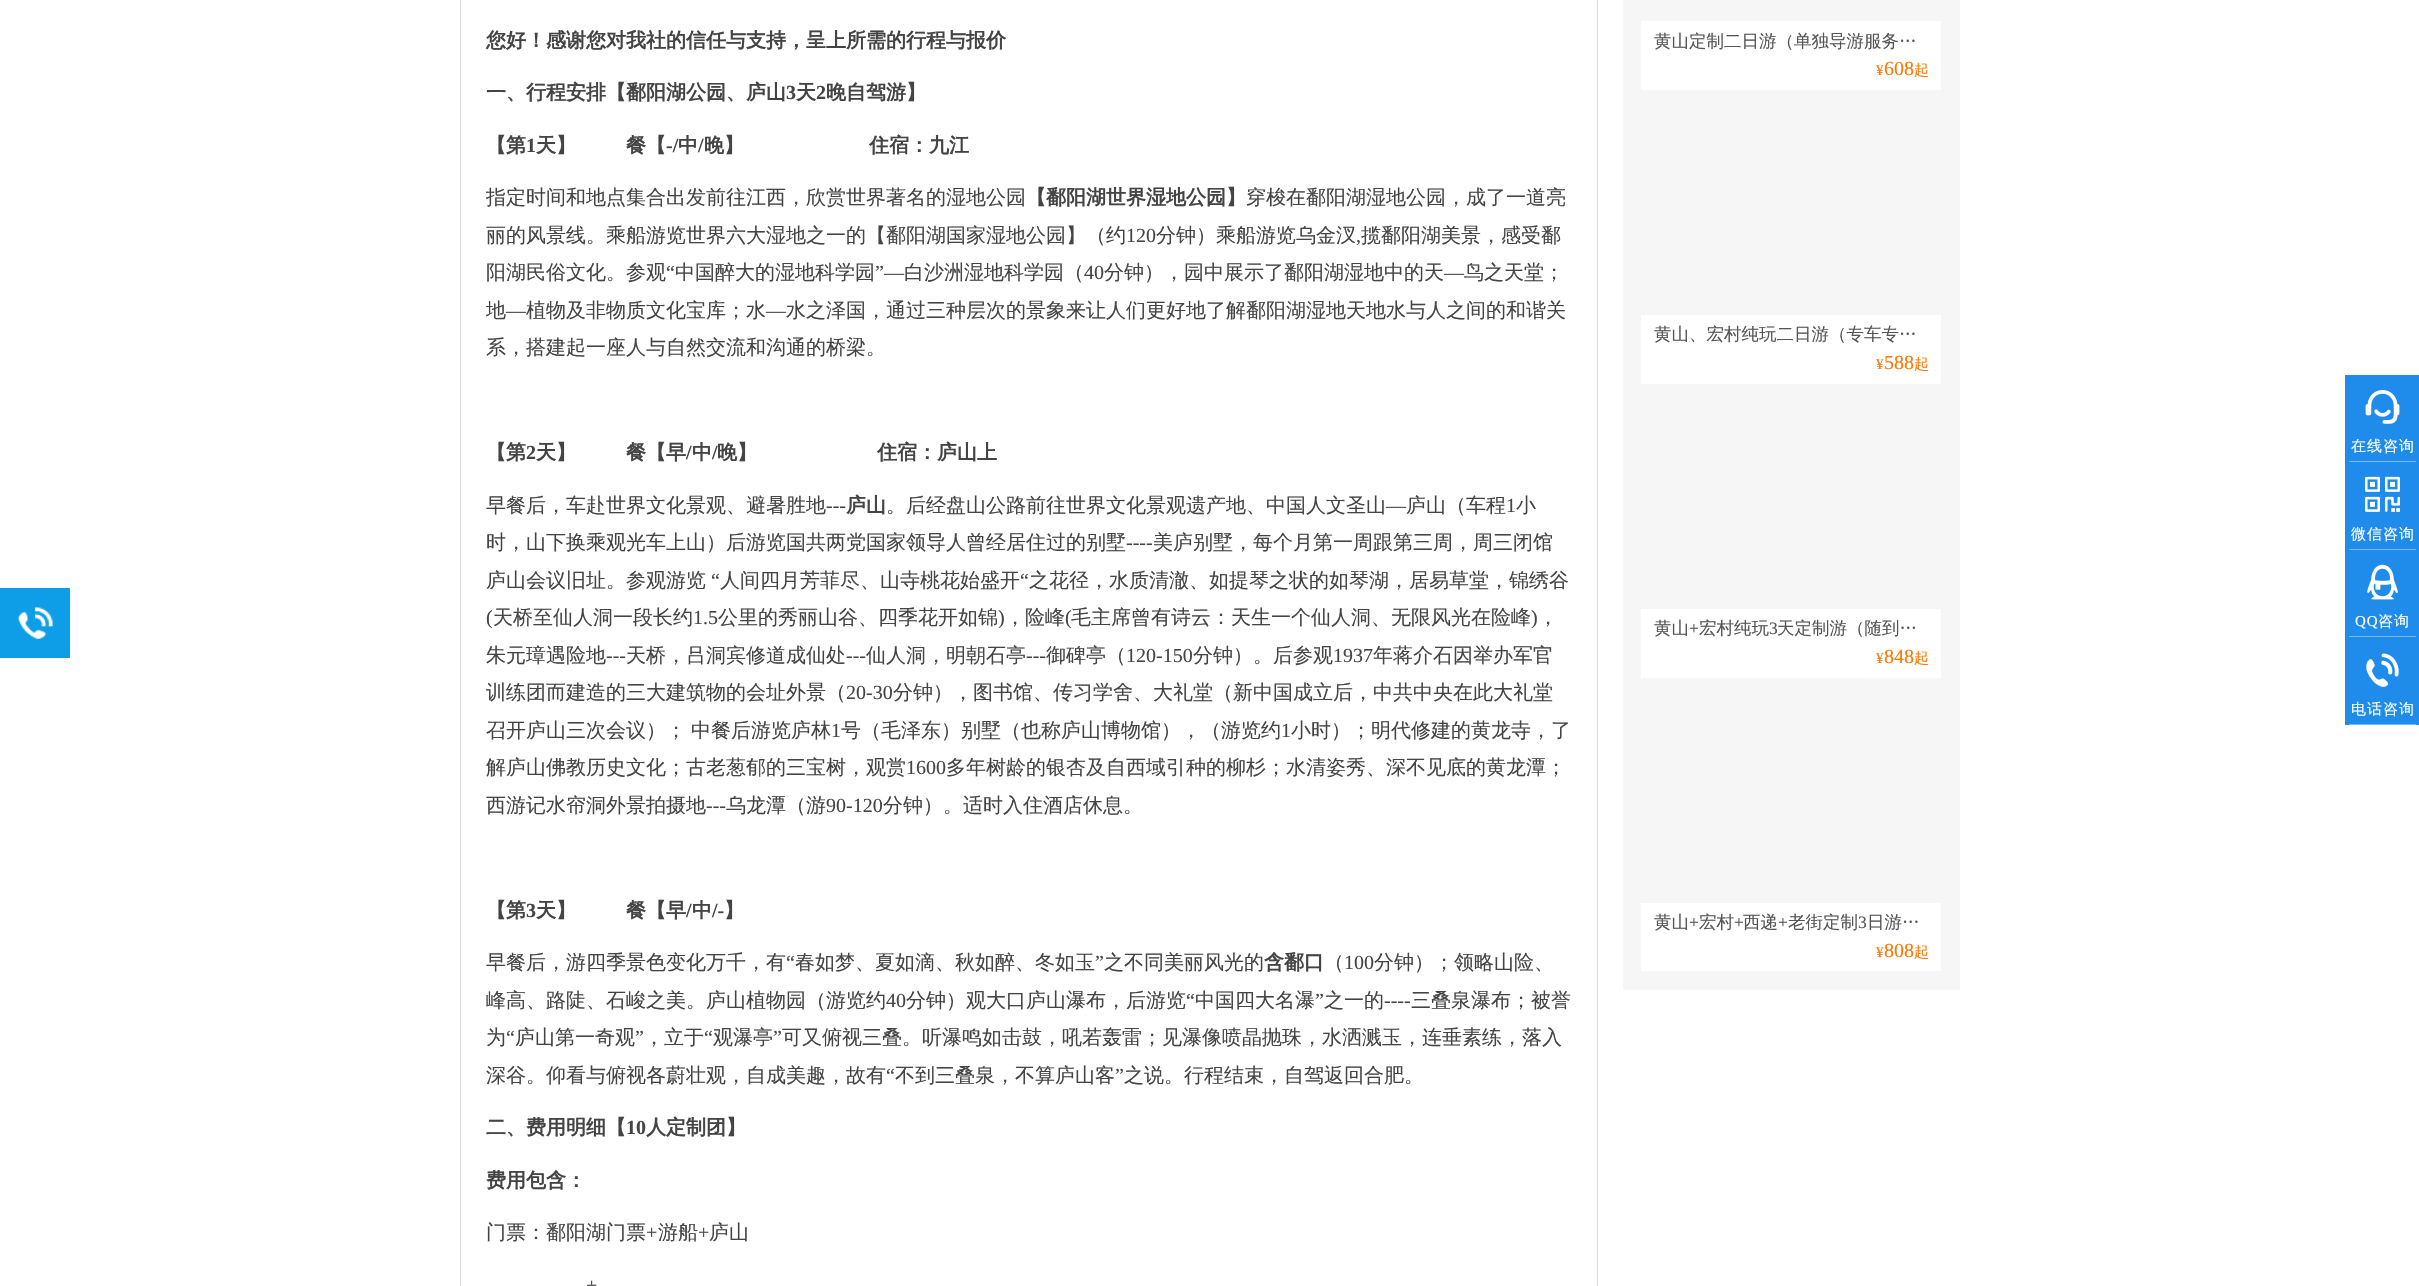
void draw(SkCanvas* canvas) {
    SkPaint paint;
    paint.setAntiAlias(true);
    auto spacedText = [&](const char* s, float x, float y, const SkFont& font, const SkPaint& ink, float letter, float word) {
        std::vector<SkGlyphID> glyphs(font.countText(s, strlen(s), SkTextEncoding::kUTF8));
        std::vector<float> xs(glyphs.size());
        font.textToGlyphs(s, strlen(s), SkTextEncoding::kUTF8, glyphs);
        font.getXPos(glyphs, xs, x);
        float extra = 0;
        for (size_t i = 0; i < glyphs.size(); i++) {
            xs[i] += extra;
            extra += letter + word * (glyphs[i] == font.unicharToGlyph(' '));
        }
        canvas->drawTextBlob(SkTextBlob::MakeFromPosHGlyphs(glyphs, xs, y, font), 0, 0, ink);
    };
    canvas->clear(0xFFFFFFFF);
    paint.setColor(0xFF0E9EE8);
    canvas->drawRect(SkRect::MakeXYWH(0, 588, 70, 70), paint);
    canvas->drawImageRect(SkImages::DeferredFromEncodedData(SkData::MakeFromFileName("img1.png")), SkRect::MakeXYWH(18, 607, 35, 32), SkSamplingOptions());
    paint.setStyle(SkPaint::kStroke_Style);
    paint.setStrokeWidth(1);
    paint.setColor(0xFFDDDDDD);
    canvas->drawRect(SkRect::MakeXYWH(460.5f, -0.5f, 1137, 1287), paint);
    SkFont font1(fontMgr->matchFamilyStyle("WenQuanYi Zen Hei", SkFontStyle::Bold()), 20);
    font1.setSubpixel(true);
    paint.setStyle(SkPaint::kFill_Style);
    paint.setColor(0xFF444444);
    canvas->drawString("您好！感谢您对我社的信任与支持，呈上所需的行程与报价", 486, 47, font1, paint);
    canvas->drawString("一、行程安排【鄱阳湖公园、庐山", 486, 99, font1, paint);
    SkFont font2(fontMgr->matchFamilyStyle("Liberation Serif", SkFontStyle::Bold()), 20);
    font2.setSubpixel(true);
    canvas->drawString("3", 786, 99, font2, paint);
    canvas->drawString("天", 796, 99, font1, paint);
    canvas->drawString("2", 816, 99, font2, paint);
    canvas->drawString("晚自驾游】", 826, 99, font1, paint);
    canvas->drawString("【第", 486, 152, font1, paint);
    canvas->drawString("1", 526, 152, font2, paint);
    canvas->drawString("天】", 536, 152, font1, paint);
    canvas->drawString("餐【", 626, 152, font1, paint);
    canvas->drawString("-/", 666, 152, font2, paint);
    canvas->drawString("中", 678, 152, font1, paint);
    canvas->drawString("/", 698, 152, font2, paint);
    canvas->drawString("晚】", 704, 152, font1, paint);
    canvas->drawString("住宿：九江", 869, 152, font1, paint);
    SkFont font3(fontMgr->matchFamilyStyle("WenQuanYi Zen Hei", SkFontStyle(500, SkFontStyle::kNormal_Width, SkFontStyle::kUpright_Slant)), 20);
    font3.setSubpixel(true);
    canvas->drawString("指定时间和地点集合出发前往江西，欣赏世界著名的湿地公园", 486, 204, font3, paint);
    canvas->drawString("【鄱阳湖世界湿地公园】", 1026, 204, font1, paint);
    canvas->drawString("穿梭在鄱阳湖湿地公园，成了一道亮", 1246, 204, font3, paint);
    canvas->drawString("丽的风景线。乘船游览世界六大湿地之一的【鄱阳湖国家湿地公园】（约", 486, 242, font3, paint);
    SkFont font4(fontMgr->matchFamilyStyle("Liberation Serif", SkFontStyle::Normal()), 20);
    font4.setSubpixel(true);
    canvas->drawString("120", 1126, 242, font4, paint);
    canvas->drawString("分钟）乘船游览乌金汊", 1156, 242, font3, paint);
    canvas->drawString(",", 1356, 242, font4, paint);
    canvas->drawString("揽鄱阳湖美景，感受鄱", 1361, 242, font3, paint);
    canvas->drawString("阳湖民俗文化。参观", 486, 279, font3, paint);
    canvas->drawString("“", 666, 279, font4, paint);
    canvas->drawString("中国醉大的湿地科学园", 675, 279, font3, paint);
    canvas->drawString("”—", 875, 279, font4, paint);
    canvas->drawString("白沙洲湿地科学园（", 904, 279, font3, paint);
    canvas->drawString("40", 1084, 279, font4, paint);
    canvas->drawString("分钟），园中展示了鄱阳湖湿地中的天", 1104, 279, font3, paint);
    canvas->drawString("—", 1444, 279, font4, paint);
    canvas->drawString("鸟之天堂；", 1464, 279, font3, paint);
    canvas->drawString("地", 486, 317, font3, paint);
    canvas->drawString("—", 506, 317, font4, paint);
    canvas->drawString("植物及非物质文化宝库；水", 526, 317, font3, paint);
    canvas->drawString("—", 766, 317, font4, paint);
    canvas->drawString("水之泽国，通过三种层次的景象来让人们更好地了解鄱阳湖湿地天地水与人之间的和谐关", 786, 317, font3, paint);
    canvas->drawString("系，搭建起一座人与自然交流和沟通的桥梁。", 486, 354, font3, paint);
    canvas->drawString("【第", 486, 459, font1, paint);
    canvas->drawString("2", 526, 459, font2, paint);
    canvas->drawString("天】", 536, 459, font1, paint);
    canvas->drawString("餐【早", 626, 459, font1, paint);
    canvas->drawString("/", 686, 459, font2, paint);
    canvas->drawString("中", 692, 459, font1, paint);
    canvas->drawString("/", 712, 459, font2, paint);
    canvas->drawString("晚】", 717, 459, font1, paint);
    canvas->drawString("住宿：庐山上", 877, 459, font1, paint);
    canvas->drawString("早餐后，车赴世界文化景观、避暑胜地", 486, 512, font3, paint);
    canvas->drawString("---", 826, 512, font4, paint);
    canvas->drawString("庐山", 846, 512, font1, paint);
    canvas->drawString("。后经盘山公路前往世界文化景观遗产地、中国人文圣山", 886, 512, font3, paint);
    canvas->drawString("—", 1386, 512, font4, paint);
    canvas->drawString("庐山（车程", 1406, 512, font3, paint);
    canvas->drawString("1", 1506, 512, font4, paint);
    canvas->drawString("小", 1516, 512, font3, paint);
    canvas->drawString("时，山下换乘观光车上山）后游览国共两党国家领导人曾经居住过的别墅", 486, 549, font3, paint);
    canvas->drawString("----", 1126, 549, font4, paint);
    canvas->drawString("美庐别墅，每个月第一周跟第三周，周三闭馆", 1153, 549, font3, paint);
    canvas->drawString("庐山会议旧址。参观游览", 486, 587, font3, paint);
    canvas->drawString("“", 711, 587, font4, paint);
    canvas->drawString("人间四月芳菲尽、山寺桃花始盛开", 720, 587, font3, paint);
    canvas->drawString("“", 1020, 587, font4, paint);
    canvas->drawString("之花径，水质清澈、如提琴之状的如琴湖，居易草堂，锦绣谷", 1029, 587, font3, paint);
    canvas->drawString("(", 486, 624, font4, paint);
    canvas->drawString("天桥至仙人洞一段长约", 493, 624, font3, paint);
    canvas->drawString("1.5", 693, 624, font4, paint);
    canvas->drawString("公里的秀丽山谷、四季花开如锦", 718, 624, font3, paint);
    canvas->drawString(")", 998, 624, font4, paint);
    canvas->drawString("，险峰", 1005, 624, font3, paint);
    canvas->drawString("(", 1065, 624, font4, paint);
    canvas->drawString("毛主席曾有诗云：天生一个仙人洞、无限风光在险峰", 1071, 624, font3, paint);
    canvas->drawString(")", 1531, 624, font4, paint);
    canvas->drawString("，", 1538, 624, font3, paint);
    canvas->drawString("朱元璋遇险地", 486, 662, font3, paint);
    canvas->drawString("---", 606, 662, font4, paint);
    canvas->drawString("天桥，吕洞宾修道成仙处", 626, 662, font3, paint);
    canvas->drawString("---", 846, 662, font4, paint);
    canvas->drawString("仙人洞，明朝石亭", 866, 662, font3, paint);
    canvas->drawString("---", 1026, 662, font4, paint);
    canvas->drawString("御碑亭（", 1046, 662, font3, paint);
    canvas->drawString("120-150", 1126, 662, font4, paint);
    canvas->drawString("分钟）。后参观", 1193, 662, font3, paint);
    canvas->drawString("1937", 1333, 662, font4, paint);
    canvas->drawString("年蒋介石因举办军官", 1373, 662, font3, paint);
    canvas->drawString("训练团而建造的三大建筑物的会址外景（", 486, 699, font3, paint);
    canvas->drawString("20-30", 846, 699, font4, paint);
    canvas->drawString("分钟），图书馆、传习学舍、大礼堂（新中国成立后，中共中央在此大礼堂", 893, 699, font3, paint);
    spacedText("召开庐山三次会议）； 中餐后游览庐林", 486, 737, font3, paint, 0, -1);
    canvas->drawString("1", 831, 737, font4, paint);
    canvas->drawString("号（毛泽东）别墅（也称庐山博物馆），（游览约", 841, 737, font3, paint);
    canvas->drawString("1", 1281, 737, font4, paint);
    canvas->drawString("小时）；明代修建的黄龙寺，了", 1291, 737, font3, paint);
    canvas->drawString("解庐山佛教历史文化；古老葱郁的三宝树，观赏", 486, 774, font3, paint);
    canvas->drawString("1600", 906, 774, font4, paint);
    canvas->drawString("多年树龄的银杏及自西域引种的柳杉；水清姿秀、深不见底的黄龙潭；", 946, 774, font3, paint);
    canvas->drawString("西游记水帘洞外景拍摄地", 486, 812, font3, paint);
    canvas->drawString("---", 706, 812, font4, paint);
    canvas->drawString("乌龙潭（游", 726, 812, font3, paint);
    canvas->drawString("90-120", 826, 812, font4, paint);
    canvas->drawString("分钟）。适时入住酒店休息。", 883, 812, font3, paint);
    canvas->drawString("【第", 486, 917, font1, paint);
    canvas->drawString("3", 526, 917, font2, paint);
    canvas->drawString("天】", 536, 917, font1, paint);
    canvas->drawString("餐【早", 626, 917, font1, paint);
    canvas->drawString("/", 686, 917, font2, paint);
    canvas->drawString("中", 692, 917, font1, paint);
    canvas->drawString("/-", 712, 917, font2, paint);
    canvas->drawString("】", 724, 917, font1, paint);
    canvas->drawString("早餐后，游四季景色变化万千，有", 486, 969, font3, paint);
    canvas->drawString("“", 786, 969, font4, paint);
    canvas->drawString("春如梦、夏如滴、秋如醉、冬如玉", 795, 969, font3, paint);
    canvas->drawString("”", 1095, 969, font4, paint);
    canvas->drawString("之不同美丽风光的", 1104, 969, font3, paint);
    canvas->drawString("含鄱口", 1264, 969, font1, paint);
    canvas->drawString("（", 1324, 969, font3, paint);
    canvas->drawString("100", 1344, 969, font4, paint);
    canvas->drawString("分钟）；领略山险、", 1374, 969, font3, paint);
    canvas->drawString("峰高、路陡、石峻之美。庐山植物园（游览约", 486, 1007, font3, paint);
    canvas->drawString("40", 886, 1007, font4, paint);
    canvas->drawString("分钟）观大口庐山瀑布，后游览", 906, 1007, font3, paint);
    canvas->drawString("“", 1186, 1007, font4, paint);
    canvas->drawString("中国四大名瀑", 1195, 1007, font3, paint);
    canvas->drawString("”", 1315, 1007, font4, paint);
    canvas->drawString("之一的", 1324, 1007, font3, paint);
    canvas->drawString("三叠泉瀑布；被誉", 1411, 1007, font3, paint);
    canvas->drawString("----", 1384, 1007, font4, paint);
    canvas->drawString("为", 486, 1044, font3, paint);
    canvas->drawString("“", 506, 1044, font4, paint);
    canvas->drawString("庐山第一奇观", 515, 1044, font3, paint);
    canvas->drawString("”", 635, 1044, font4, paint);
    canvas->drawString("，立于", 644, 1044, font3, paint);
    canvas->drawString("“", 704, 1044, font4, paint);
    canvas->drawString("观瀑亭", 713, 1044, font3, paint);
    canvas->drawString("”", 773, 1044, font4, paint);
    canvas->drawString("可又俯视三叠。听瀑鸣如击鼓，吼若轰雷；见瀑像喷晶抛珠，水洒溅玉，连垂素练，落入", 782, 1044, font3, paint);
    canvas->drawString("深谷。仰看与俯视各蔚壮观，自成美趣，故有", 486, 1082, font3, paint);
    canvas->drawString("“", 886, 1082, font4, paint);
    canvas->drawString("不到三叠泉，不算庐山客", 895, 1082, font3, paint);
    canvas->drawString("”", 1115, 1082, font4, paint);
    canvas->drawString("之说。行程结束，自驾返回合肥。", 1124, 1082, font3, paint);
    canvas->drawString("二、费用明细【", 486, 1134, font1, paint);
    canvas->drawString("10", 626, 1134, font2, paint);
    canvas->drawString("人定制团】", 646, 1134, font1, paint);
    canvas->drawString("费用包含：", 486, 1187, font1, paint);
    canvas->drawString("门票：鄱阳湖门票", 486, 1239, font3, paint);
    canvas->drawString("+", 646, 1239, font4, paint);
    canvas->drawString("游船", 658, 1239, font3, paint);
    canvas->drawString("+", 698, 1239, font4, paint);
    canvas->drawString("庐山", 709, 1239, font3, paint);
    canvas->drawString("+", 586, 1292, font4, paint);
    paint.setColor(0xFFF6F6F6);
    canvas->drawRect(SkRect::MakeXYWH(1623, 0, 337, 990), paint);
    paint.setColor(0xFFFFFFFF);
    canvas->drawRect(SkRect::MakeXYWH(1641, 21, 300, 69), paint);
    SkFont font5(fontMgr->matchFamilyStyle("WenQuanYi Zen Hei", SkFontStyle(500, SkFontStyle::kNormal_Width, SkFontStyle::kUpright_Slant)), 17.5f);
    font5.setSubpixel(true);
    paint.setColor(0xFF555555);
    canvas->drawString("黄山定制二日游（单独导游服务…", 1654, 47, font5, paint);
    SkFont font6(fontMgr->matchFamilyStyle("Liberation Serif", SkFontStyle::Normal()), 15);
    font6.setSubpixel(true);
    paint.setColor(0xFFFF7700);
    canvas->drawString("¥", 1876, 75, font6, paint);
    canvas->drawString("608", 1884, 75, font4, paint);
    SkFont font7(fontMgr->matchFamilyStyle("WenQuanYi Zen Hei", SkFontStyle(500, SkFontStyle::kNormal_Width, SkFontStyle::kUpright_Slant)), 15);
    font7.setSubpixel(true);
    canvas->drawString("起", 1914, 75, font7, paint);
    paint.setColor(0xFFFFFFFF);
    canvas->drawRect(SkRect::MakeXYWH(1641, 315, 300, 69), paint);
    paint.setColor(0xFF555555);
    canvas->drawString("黄山、宏村纯玩二日游（专车专…", 1654, 340, font5, paint);
    paint.setColor(0xFFFF7700);
    canvas->drawString("¥", 1876, 369, font6, paint);
    canvas->drawString("588", 1884, 369, font4, paint);
    canvas->drawString("起", 1914, 369, font7, paint);
    paint.setColor(0xFFFFFFFF);
    canvas->drawRect(SkRect::MakeXYWH(1641, 609, 300, 69), paint);
    paint.setColor(0xFF555555);
    canvas->drawString("黄山", 1654, 634, font5, paint);
    SkFont font8(fontMgr->matchFamilyStyle("Liberation Serif", SkFontStyle::Normal()), 17.5f);
    font8.setSubpixel(true);
    canvas->drawString("+", 1689, 634, font8, paint);
    canvas->drawString("宏村纯玩", 1699, 634, font5, paint);
    canvas->drawString("3", 1769, 634, font8, paint);
    canvas->drawString("天定制游（随到…", 1777, 634, font5, paint);
    paint.setColor(0xFFFF7700);
    canvas->drawString("¥", 1876, 663, font6, paint);
    canvas->drawString("848", 1884, 663, font4, paint);
    canvas->drawString("起", 1914, 663, font7, paint);
    paint.setColor(0xFFFFFFFF);
    canvas->drawRect(SkRect::MakeXYWH(1641, 903, 300, 68), paint);
    paint.setColor(0xFF555555);
    canvas->drawString("黄山", 1654, 928, font5, paint);
    canvas->drawString("+", 1689, 928, font8, paint);
    canvas->drawString("宏村", 1699, 928, font5, paint);
    canvas->drawString("+", 1734, 928, font8, paint);
    canvas->drawString("西递", 1743, 928, font5, paint);
    canvas->drawString("+", 1778, 928, font8, paint);
    canvas->drawString("老街定制", 1788, 928, font5, paint);
    canvas->drawString("3", 1858, 928, font8, paint);
    canvas->drawString("日游…", 1867, 928, font5, paint);
    paint.setColor(0xFFFF7700);
    canvas->drawString("¥", 1876, 957, font6, paint);
    canvas->drawString("808", 1884, 957, font4, paint);
    canvas->drawString("起", 1914, 957, font7, paint);
    paint.setColor(0xFF1F8CEB);
    canvas->drawRect(SkRect::MakeXYWH(2345, 375, 74, 350), paint);
    canvas->drawImageRect(SkImages::DeferredFromEncodedData(SkData::MakeFromFileName("img2.png")), SkRect::MakeXYWH(2365, 390, 35, 34), SkSamplingOptions());
    paint.setColor(0xFFFFFFFF);
    spacedText("在线咨询", 2351, 451, font7, paint, 1, 0);
    paint.setColor(0xFF79BAF3);
    canvas->drawRect(SkRect::MakeXYWH(2349, 461, 67, 1), paint);
    canvas->drawImageRect(SkImages::DeferredFromEncodedData(SkData::MakeFromFileName("img3.png")), SkRect::MakeXYWH(2365, 476, 35, 36), SkSamplingOptions());
    paint.setColor(0xFFFFFFFF);
    spacedText("微信咨询", 2351, 539, font7, paint, 1, 0);
    paint.setColor(0xFF79BAF3);
    canvas->drawRect(SkRect::MakeXYWH(2349, 549, 67, 1), paint);
    canvas->drawImageRect(SkImages::DeferredFromEncodedData(SkData::MakeFromFileName("img4.png")), SkRect::MakeXYWH(2367, 564, 31, 36), SkSamplingOptions());
    paint.setColor(0xFFFFFFFF);
    spacedText("QQ", 2355, 626, font6, paint, 1, 0);
    spacedText("咨询", 2378, 626, font7, paint, 1, 0);
    paint.setColor(0xFF79BAF3);
    canvas->drawRect(SkRect::MakeXYWH(2349, 636, 67, 1), paint);
    canvas->drawImageRect(SkImages::DeferredFromEncodedData(SkData::MakeFromFileName("img5.png")), SkRect::MakeXYWH(2366, 653, 33, 34), SkSamplingOptions());
    paint.setColor(0xFFFFFFFF);
    spacedText("电话咨询", 2351, 714, font7, paint, 1, 0);
    paint.setColor(0xFF79BAF3);
    canvas->drawRect(SkRect::MakeXYWH(2349, 724, 67, 1), paint);
}
